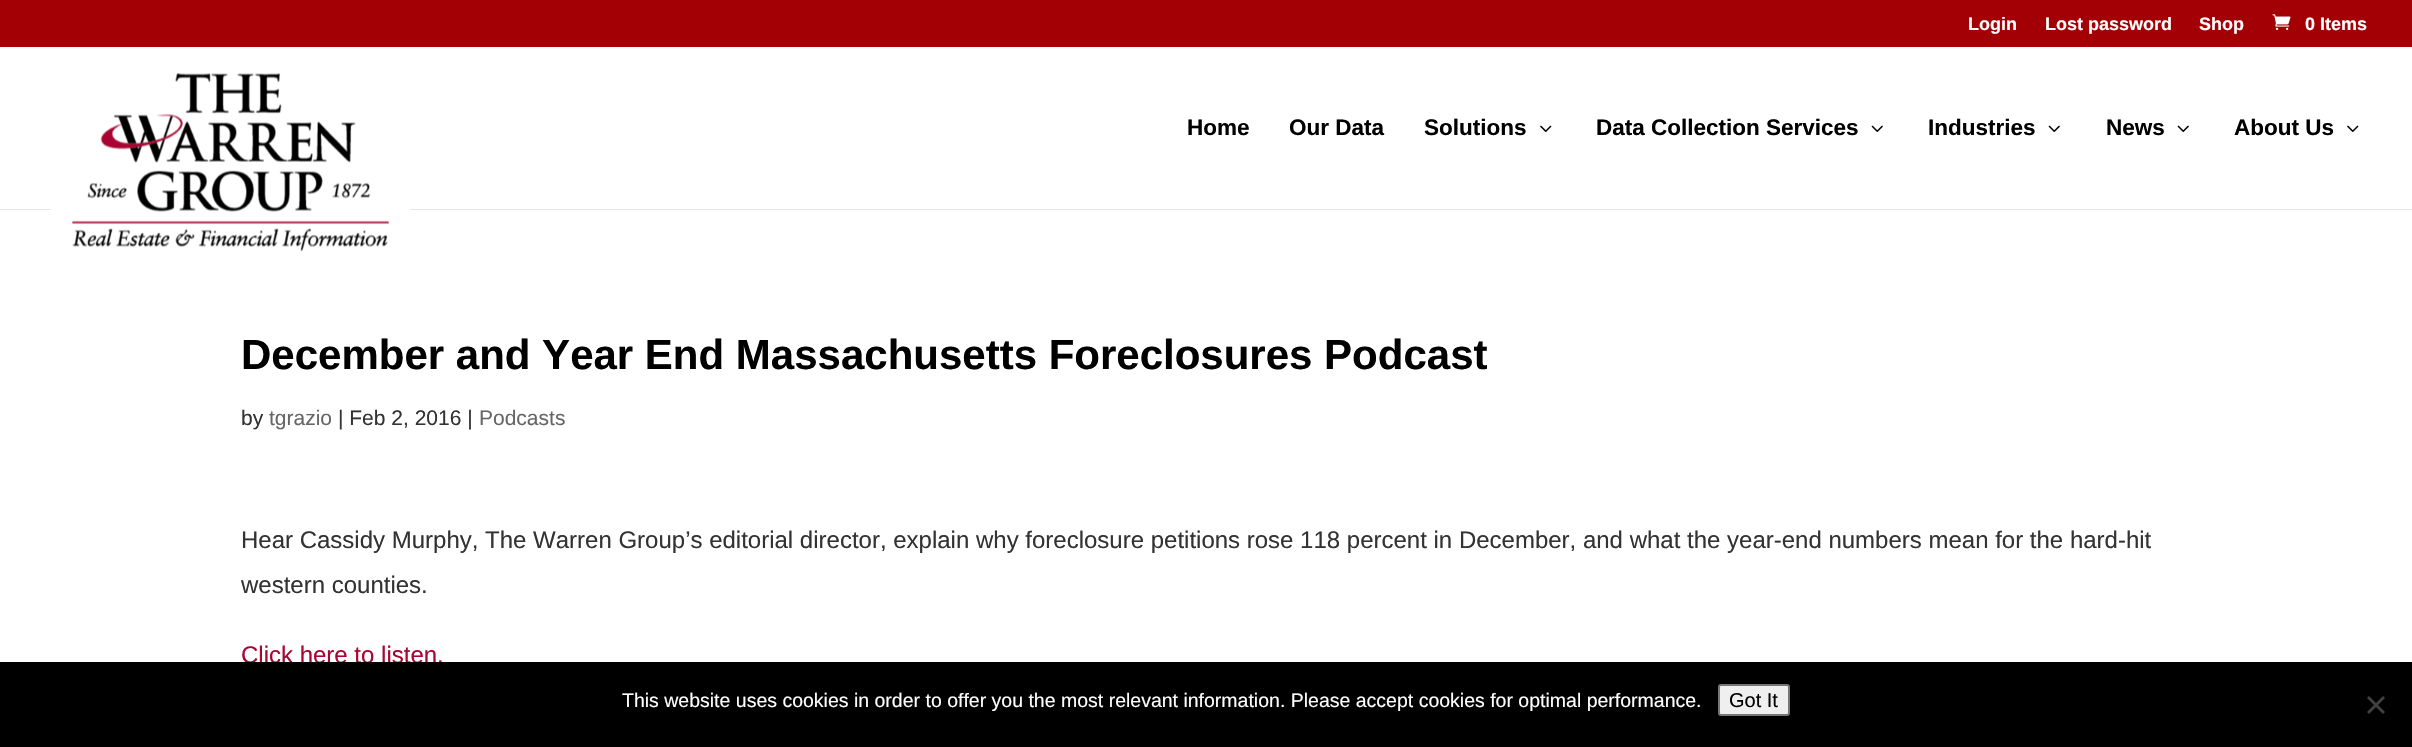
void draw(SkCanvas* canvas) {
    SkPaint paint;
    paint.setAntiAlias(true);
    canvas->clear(0xFFFFFFFF);
    paint.setColor(0xFFA30005);
    canvas->drawRect(SkRect::MakeXYWH(0, 0, 2412, 47), paint);
    SkFont font1(fontMgr->matchFamilyStyle("Liberation Sans", SkFontStyle::Bold()), 18);
    font1.setSubpixel(true);
    paint.setColor(0xFFFFFFFF);
    canvas->drawString("Login", 1968, 30, font1, paint);
    canvas->drawString("Lost password", 2045, 30, font1, paint);
    canvas->drawString("Shop", 2199, 30, font1, paint);
    canvas->drawImageRect(SkImages::DeferredFromEncodedData(SkData::MakeFromFileName("img1.png")), SkRect::MakeXYWH(2272, 14, 19, 16), SkSamplingOptions());
    canvas->drawString("0 Items", 2305, 30, font1, paint);
    paint.setColor(0xFFE6E6E6);
    canvas->drawRect(SkRect::MakeXYWH(0, 209, 2412, 1), paint);
    paint.setColor(0xFFFFFFFF);
    canvas->drawRect(SkRect::MakeXYWH(51, 209, 359, 1), paint);
    canvas->drawImageRect(SkImages::DeferredFromEncodedData(SkData::MakeFromFileName("img2.png")), SkRect::MakeXYWH(72, 73, 318, 179), SkSamplingOptions());
    SkFont font2(fontMgr->matchFamilyStyle("Liberation Sans", SkFontStyle::Bold()), 22.5f);
    font2.setSubpixel(true);
    paint.setColor(0xFF000000);
    canvas->drawString("Home", 1187, 135, font2, paint);
    canvas->drawString("Our Data", 1289, 135, font2, paint);
    canvas->drawString("Solutions", 1424, 135, font2, paint);
    canvas->drawImageRect(SkImages::DeferredFromEncodedData(SkData::MakeFromFileName("img3.png")), SkRect::MakeXYWH(1540, 125, 12, 7), SkSamplingOptions());
    canvas->drawString("Data Collection Services", 1596, 135, font2, paint);
    canvas->drawImageRect(SkImages::DeferredFromEncodedData(SkData::MakeFromFileName("img4.png")), SkRect::MakeXYWH(1871, 125, 12, 7), SkSamplingOptions());
    canvas->drawString("Industries", 1928, 135, font2, paint);
    canvas->drawImageRect(SkImages::DeferredFromEncodedData(SkData::MakeFromFileName("img4.png")), SkRect::MakeXYWH(2048, 125, 12, 7), SkSamplingOptions());
    canvas->drawString("News", 2106, 135, font2, paint);
    canvas->drawImageRect(SkImages::DeferredFromEncodedData(SkData::MakeFromFileName("img4.png")), SkRect::MakeXYWH(2177, 125, 12, 7), SkSamplingOptions());
    canvas->drawString("About Us", 2234, 135, font2, paint);
    canvas->drawImageRect(SkImages::DeferredFromEncodedData(SkData::MakeFromFileName("img3.png")), SkRect::MakeXYWH(2347, 125, 12, 7), SkSamplingOptions());
    SkFont font3(fontMgr->matchFamilyStyle("Liberation Sans", SkFontStyle::Bold()), 42);
    font3.setSubpixel(true);
    canvas->drawString("December and Year End Massachusetts Foreclosures Podcast", 241, 369, font3, paint);
    SkFont font4(fontMgr->matchFamilyStyle("Liberation Sans", SkFontStyle::Normal()), 21);
    font4.setSubpixel(true);
    paint.setColor(0xFF333333);
    canvas->drawString("by", 241, 425, font4, paint);
    paint.setColor(0xFF666666);
    canvas->drawString("tgrazio", 269, 425, font4, paint);
    paint.setColor(0xFF333333);
    canvas->drawString("| Feb 2, 2016 |", 338, 425, font4, paint);
    paint.setColor(0xFF666666);
    canvas->drawString("Podcasts", 479, 425, font4, paint);
    SkFont font5(fontMgr->matchFamilyStyle("Liberation Sans", SkFontStyle::Normal()), 24);
    font5.setSubpixel(true);
    paint.setColor(0xFF333333);
    canvas->drawString("Hear Cassidy Murphy, The Warren Group’s editorial director, explain why foreclosure petitions rose 118 percent in December, and what the year-end numbers mean for the hard-hit", 241, 548, font5, paint);
    canvas->drawString("western counties.", 241, 593, font5, paint);
    paint.setColor(0xFFA80532);
    canvas->drawString("Click here to listen.", 241, 663, font5, paint);
    paint.setColor(0xFF000000);
    canvas->drawRect(SkRect::MakeXYWH(0, 662, 2412, 85), paint);
    SkFont font6(fontMgr->matchFamilyStyle("Liberation Sans", SkFontStyle::Normal()), 19.5f);
    font6.setSubpixel(true);
    paint.setColor(0xFFFFFFFF);
    canvas->drawString("This website uses cookies in order to offer you the most relevant information. Please accept cookies for optimal performance.", 622, 707, font6, paint);
    paint.setColor(0xFFEFEFEF);
    canvas->drawRoundRect(SkRect::MakeXYWH(1719, 685, 70, 30), 2, 2, paint);
    paint.setStyle(SkPaint::kStroke_Style);
    paint.setStrokeWidth(2);
    paint.setColor(0xFF767676);
    canvas->drawRoundRect(SkRect::MakeXYWH(1719, 685, 70, 30), 2, 2, paint);
    SkFont font7(fontMgr->matchFamilyStyle("Liberation Sans", SkFontStyle::Normal()), 20);
    font7.setSubpixel(true);
    paint.setStyle(SkPaint::kFill_Style);
    paint.setColor(0xFF000000);
    canvas->drawString("Got It", 1729, 707, font7, paint);
    paint.setColor(0xFF404040);
    canvas->drawPath(SkPathBuilder().moveTo(2383, 696).lineTo(2385, 698).lineTo(2369, 714).lineTo(2367, 712).close().detach(), paint);
    canvas->drawPath(SkPathBuilder().moveTo(2367, 698).lineTo(2369, 696).lineTo(2385, 712).lineTo(2383, 714).close().detach(), paint);
}
